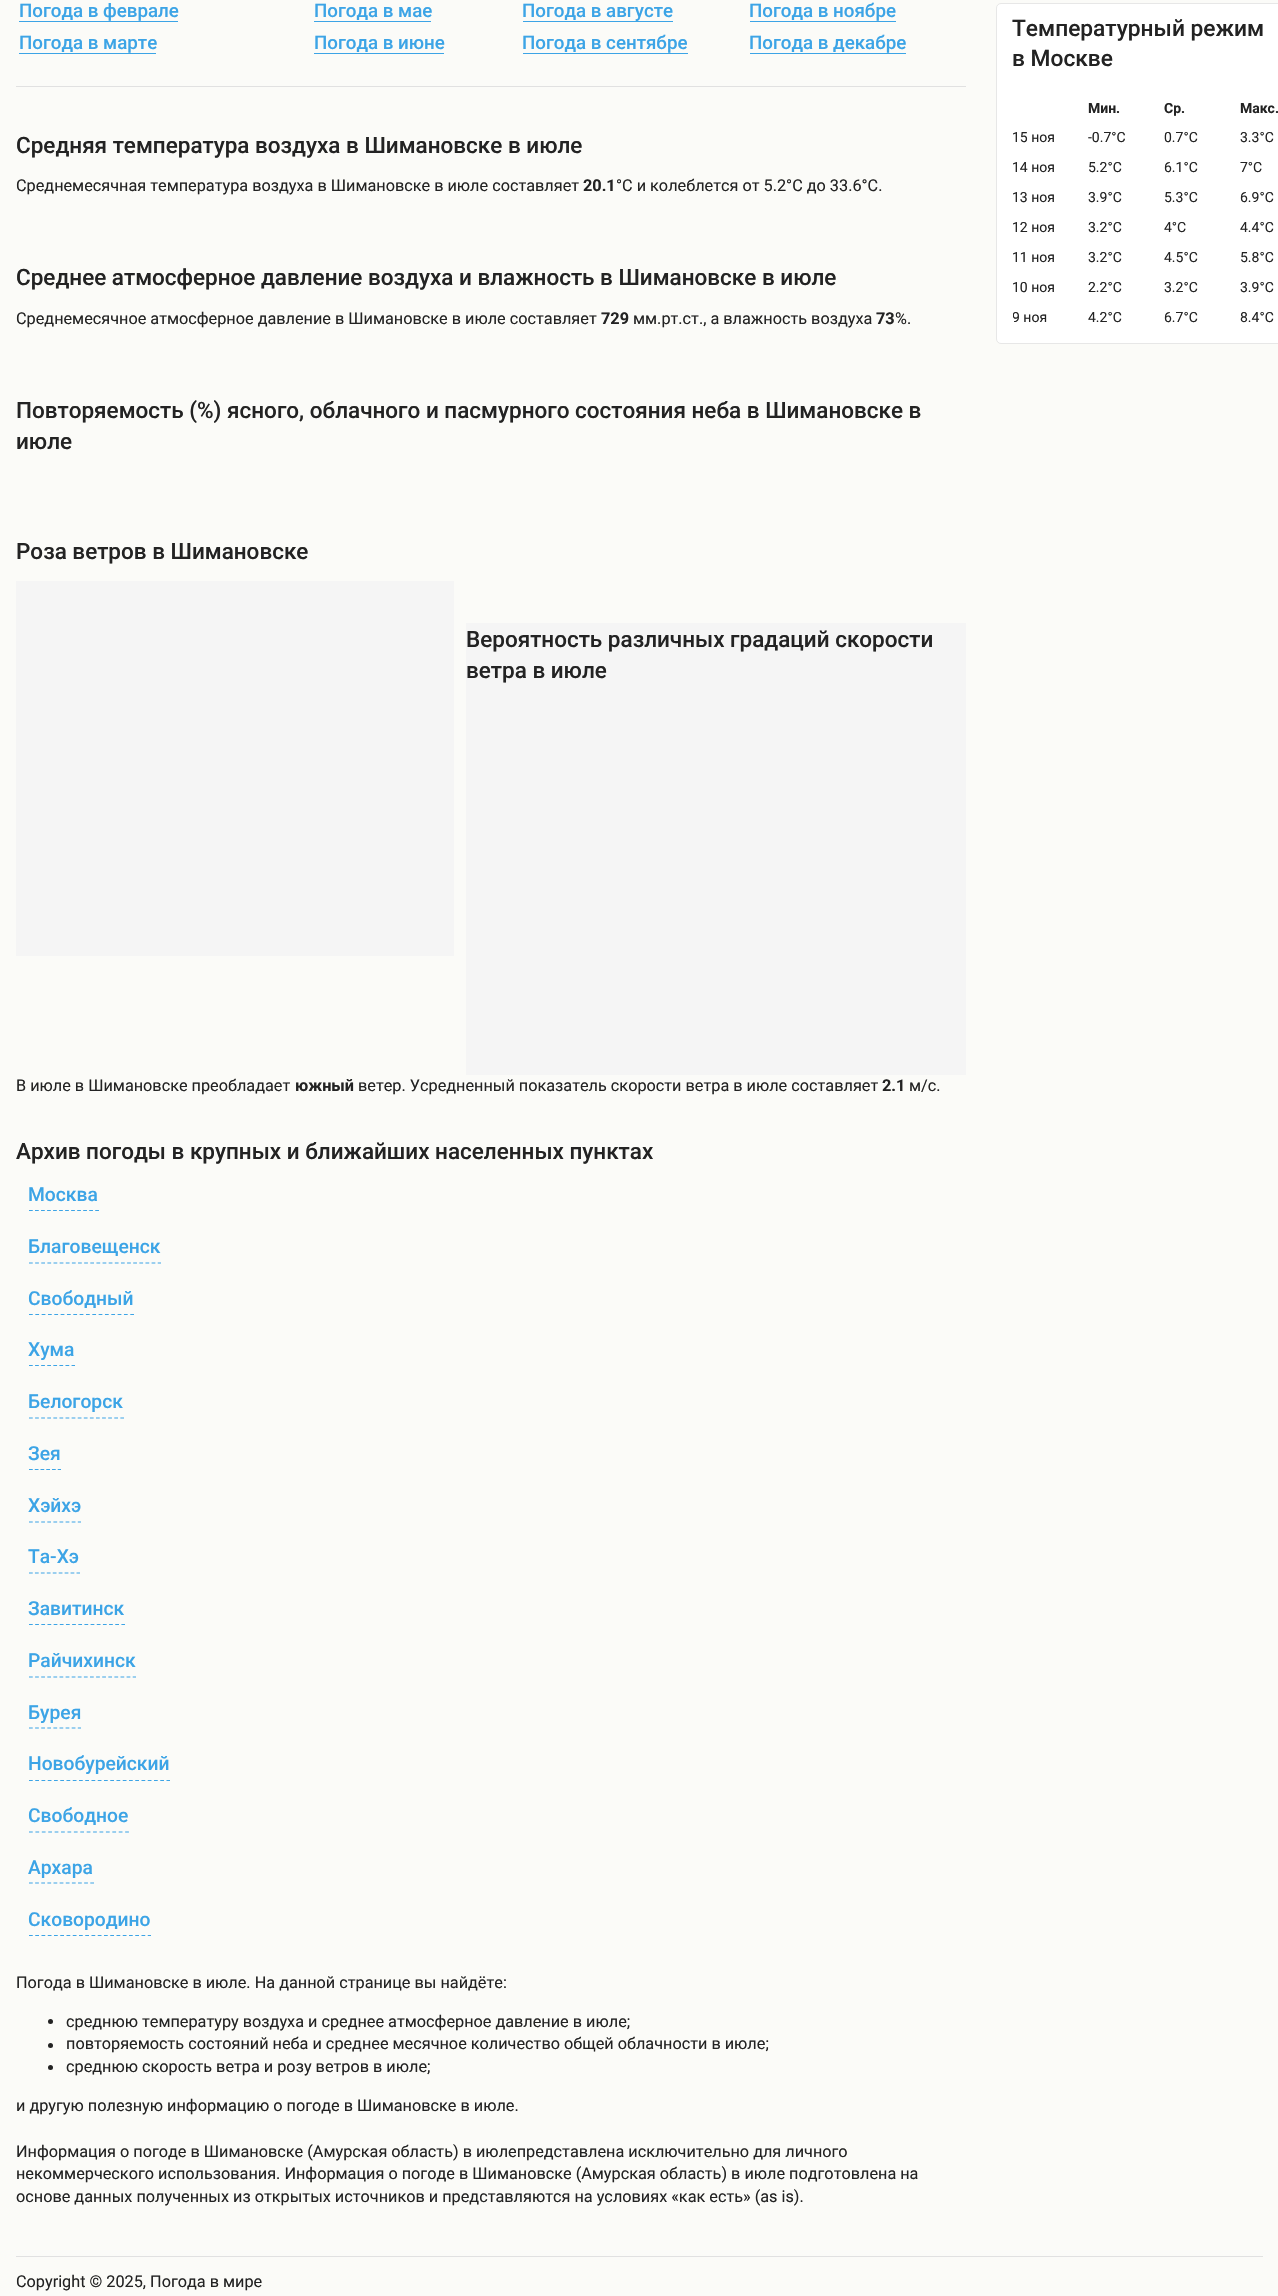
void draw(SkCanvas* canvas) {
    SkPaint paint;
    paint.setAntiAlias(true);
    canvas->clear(0xFFFBFBF8);
    paint.setColor(0xFF3CA4E6);
    canvas->drawRect(SkRect::MakeXYWH(19, 21, 159, 1), paint);
    SkFont font1(fontMgr->matchFamilyStyle("Roboto", SkFontStyle(500, SkFontStyle::kNormal_Width, SkFontStyle::kUpright_Slant)), 18.75f);
    font1.setSubpixel(true);
    canvas->drawString("Погода в феврале", 19, 17, font1, paint);
    canvas->drawRect(SkRect::MakeXYWH(19, 53, 137, 1), paint);
    canvas->drawString("Погода в марте", 19, 49, font1, paint);
    canvas->drawRect(SkRect::MakeXYWH(314, 21, 117, 1), paint);
    canvas->drawString("Погода в мае", 314, 17, font1, paint);
    canvas->drawRect(SkRect::MakeXYWH(314, 53, 130, 1), paint);
    canvas->drawString("Погода в июне", 314, 49, font1, paint);
    canvas->drawRect(SkRect::MakeXYWH(523, 21, 150, 1), paint);
    canvas->drawString("Погода в августе", 522, 17, font1, paint);
    canvas->drawRect(SkRect::MakeXYWH(523, 53, 165, 1), paint);
    canvas->drawString("Погода в сентябре", 522, 49, font1, paint);
    canvas->drawRect(SkRect::MakeXYWH(750, 21, 146, 1), paint);
    canvas->drawString("Погода в ноябре", 749, 17, font1, paint);
    canvas->drawRect(SkRect::MakeXYWH(750, 53, 156, 1), paint);
    canvas->drawString("Погода в декабре", 749, 49, font1, paint);
    paint.setColor(0xFFE1E1E1);
    canvas->drawRect(SkRect::MakeXYWH(16, 86, 950, 1), paint);
    SkFont font2(fontMgr->matchFamilyStyle("Roboto", SkFontStyle(500, SkFontStyle::kNormal_Width, SkFontStyle::kUpright_Slant)), 22.5f);
    font2.setSubpixel(true);
    paint.setColor(0xFF232323);
    canvas->drawString("Средняя температура воздуха в Шимановске в июле", 16, 153, font2, paint);
    SkFont font3(fontMgr->matchFamilyStyle("Roboto", SkFontStyle::Normal()), 16.25f);
    font3.setSubpixel(true);
    canvas->drawString("Cреднемесячная температура воздуха в Шимановске в июле составляет", 16, 191, font3, paint);
    SkFont font4(fontMgr->matchFamilyStyle("Roboto", SkFontStyle::Bold()), 16.25f);
    font4.setSubpixel(true);
    canvas->drawString("20.1", 583, 191, font4, paint);
    canvas->drawString("°C и колеблется от 5.2°C до 33.6°C.", 616, 191, font3, paint);
    canvas->drawString("Среднее атмосферное давление воздуха и влажность в Шимановске в июле", 16, 285, font2, paint);
    canvas->drawString("Среднемесячное атмосферное давление в Шимановске в июле составляет", 16, 324, font3, paint);
    canvas->drawString("729", 601, 324, font4, paint);
    canvas->drawString("мм.рт.ст., а влажность воздуха", 633, 324, font3, paint);
    canvas->drawString("73", 876, 324, font4, paint);
    canvas->drawString("%.", 895, 324, font3, paint);
    canvas->drawString("Повторяемость (%) ясного, облачного и пасмурного состояния неба в Шимановске в", 16, 418, font2, paint);
    canvas->drawString("июле", 16, 449, font2, paint);
    canvas->drawString("Роза ветров в Шимановске", 16, 559, font2, paint);
    paint.setColor(0xFFF5F5F5);
    canvas->drawRect(SkRect::MakeXYWH(16, 581, 438, 375), paint);
    canvas->drawRect(SkRect::MakeXYWH(466, 623, 500, 452), paint);
    paint.setColor(0xFF232323);
    canvas->drawString("Вероятность различных градаций скорости", 466, 647, font2, paint);
    canvas->drawString("ветра в июле", 466, 678, font2, paint);
    canvas->drawString("В июле в Шимановске преобладает", 16, 1091, font3, paint);
    canvas->drawString("южный", 295, 1091, font4, paint);
    canvas->drawString("ветер. Усредненный показатель скорости ветра в июле составляет", 358, 1091, font3, paint);
    canvas->drawString("2.1", 882, 1091, font4, paint);
    canvas->drawString("м/с.", 909, 1091, font3, paint);
    canvas->drawString("Архив погоды в крупных и ближайших населенных пунктах", 16, 1159, font2, paint);
    paint.setStyle(SkPaint::kStroke_Style);
    paint.setStrokeWidth(1.2f);
    paint.setColor(0xFF3CA4E6);
    paint.setPathEffect(SkDashPathEffect::Make({{3.75f, 2.27f}}, 0));
    canvas->drawPath(SkPathBuilder().moveTo(29, 1210.5f).lineTo(99, 1210.5f).detach(), paint);
    paint.setPathEffect(nullptr);
    SkFont font5(fontMgr->matchFamilyStyle("Roboto", SkFontStyle(500, SkFontStyle::kNormal_Width, SkFontStyle::kUpright_Slant)), 19.25f);
    font5.setSubpixel(true);
    paint.setStyle(SkPaint::kFill_Style);
    canvas->drawString("Москва", 28, 1201, font5, paint);
    paint.setStyle(SkPaint::kStroke_Style);
    paint.setPathEffect(SkDashPathEffect::Make({{3.75f, 2.38f}}, 0));
    canvas->drawPath(SkPathBuilder().moveTo(29, 1263).lineTo(161, 1263).detach(), paint);
    paint.setPathEffect(nullptr);
    paint.setStyle(SkPaint::kFill_Style);
    canvas->drawString("Благовещенск", 28, 1253, font5, paint);
    paint.setStyle(SkPaint::kStroke_Style);
    paint.setPathEffect(SkDashPathEffect::Make({{3.75f, 2.58f}}, 0));
    canvas->drawPath(SkPathBuilder().moveTo(29, 1314.5f).lineTo(134, 1314.5f).detach(), paint);
    paint.setPathEffect(nullptr);
    paint.setStyle(SkPaint::kFill_Style);
    canvas->drawString("Свободный", 28, 1305, font5, paint);
    paint.setStyle(SkPaint::kStroke_Style);
    paint.setPathEffect(SkDashPathEffect::Make({{3.75f, 2.33f}}, 0));
    canvas->drawPath(SkPathBuilder().moveTo(29, 1365.5f).lineTo(75, 1365.5f).detach(), paint);
    paint.setPathEffect(nullptr);
    paint.setStyle(SkPaint::kFill_Style);
    canvas->drawString("Хума", 28, 1356, font5, paint);
    paint.setStyle(SkPaint::kStroke_Style);
    paint.setPathEffect(SkDashPathEffect::Make({{3.75f, 2.34f}}, 0));
    canvas->drawPath(SkPathBuilder().moveTo(29, 1418).lineTo(124, 1418).detach(), paint);
    paint.setPathEffect(nullptr);
    paint.setStyle(SkPaint::kFill_Style);
    canvas->drawString("Белогорск", 28, 1408, font5, paint);
    paint.setStyle(SkPaint::kStroke_Style);
    paint.setPathEffect(SkDashPathEffect::Make({{3.75f, 2}}, 0));
    canvas->drawPath(SkPathBuilder().moveTo(29, 1469.5f).lineTo(61, 1469.5f).detach(), paint);
    paint.setPathEffect(nullptr);
    paint.setStyle(SkPaint::kFill_Style);
    canvas->drawString("Зея", 28, 1460, font5, paint);
    paint.setStyle(SkPaint::kStroke_Style);
    paint.setPathEffect(SkDashPathEffect::Make({{3.75f, 2.35f}}, 0));
    canvas->drawPath(SkPathBuilder().moveTo(29, 1522).lineTo(81, 1522).detach(), paint);
    paint.setPathEffect(nullptr);
    paint.setStyle(SkPaint::kFill_Style);
    canvas->drawString("Хэйхэ", 28, 1512, font5, paint);
    paint.setStyle(SkPaint::kStroke_Style);
    paint.setPathEffect(SkDashPathEffect::Make({{3.75f, 2.19f}}, 0));
    canvas->drawPath(SkPathBuilder().moveTo(29, 1573).lineTo(80, 1573).detach(), paint);
    paint.setPathEffect(nullptr);
    paint.setStyle(SkPaint::kFill_Style);
    canvas->drawString("Та-Хэ", 28, 1563, font5, paint);
    paint.setStyle(SkPaint::kStroke_Style);
    paint.setPathEffect(SkDashPathEffect::Make({{3.75f, 2.41f}}, 0));
    canvas->drawPath(SkPathBuilder().moveTo(29, 1624.5f).lineTo(125, 1624.5f).detach(), paint);
    paint.setPathEffect(nullptr);
    paint.setStyle(SkPaint::kFill_Style);
    canvas->drawString("Завитинск", 28, 1615, font5, paint);
    paint.setStyle(SkPaint::kStroke_Style);
    paint.setPathEffect(SkDashPathEffect::Make({{3.75f, 2.35f}}, 0));
    canvas->drawPath(SkPathBuilder().moveTo(29, 1677).lineTo(136, 1677).detach(), paint);
    paint.setPathEffect(nullptr);
    paint.setStyle(SkPaint::kFill_Style);
    canvas->drawString("Райчихинск", 28, 1667, font5, paint);
    paint.setStyle(SkPaint::kStroke_Style);
    paint.setPathEffect(SkDashPathEffect::Make({{3.75f, 2.35f}}, 0));
    canvas->drawPath(SkPathBuilder().moveTo(29, 1728).lineTo(81, 1728).detach(), paint);
    paint.setPathEffect(nullptr);
    paint.setStyle(SkPaint::kFill_Style);
    canvas->drawString("Бурея", 28, 1719, font5, paint);
    paint.setStyle(SkPaint::kStroke_Style);
    paint.setPathEffect(SkDashPathEffect::Make({{3.75f, 2.5f}}, 0));
    canvas->drawPath(SkPathBuilder().moveTo(29, 1780.5f).lineTo(170, 1780.5f).detach(), paint);
    paint.setPathEffect(nullptr);
    paint.setStyle(SkPaint::kFill_Style);
    canvas->drawString("Новобурейский", 28, 1770, font5, paint);
    paint.setStyle(SkPaint::kStroke_Style);
    paint.setPathEffect(SkDashPathEffect::Make({{3.75f, 2.66f}}, 0));
    canvas->drawPath(SkPathBuilder().moveTo(29, 1832).lineTo(129, 1832).detach(), paint);
    paint.setPathEffect(nullptr);
    paint.setStyle(SkPaint::kFill_Style);
    canvas->drawString("Свободное", 28, 1822, font5, paint);
    paint.setStyle(SkPaint::kStroke_Style);
    paint.setPathEffect(SkDashPathEffect::Make({{3.75f, 2.38f}}, 0));
    canvas->drawPath(SkPathBuilder().moveTo(29, 1883).lineTo(94, 1883).detach(), paint);
    paint.setPathEffect(nullptr);
    paint.setStyle(SkPaint::kFill_Style);
    canvas->drawString("Архара", 28, 1874, font5, paint);
    paint.setStyle(SkPaint::kStroke_Style);
    paint.setPathEffect(SkDashPathEffect::Make({{3.75f, 2.5f}}, 0));
    canvas->drawPath(SkPathBuilder().moveTo(29, 1935.5f).lineTo(151, 1935.5f).detach(), paint);
    paint.setPathEffect(nullptr);
    paint.setStyle(SkPaint::kFill_Style);
    canvas->drawString("Сковородино", 28, 1926, font5, paint);
    paint.setColor(0xFF232323);
    canvas->drawString("Погода в Шимановске в июле. На данной странице вы найдёте:", 16, 1988, font3, paint);
    canvas->drawCircle(50.5f, 2021.5f, 2.5f, paint);
    canvas->drawString("среднюю температуру воздуха и среднее атмосферное давление в июле;", 66, 2027, font3, paint);
    canvas->drawCircle(50.5f, 2045.5f, 2.5f, paint);
    canvas->drawString("повторяемость состояний неба и среднее месячное количество общей облачности в июле;", 66, 2049, font3, paint);
    canvas->drawCircle(50.5f, 2067.5f, 2.5f, paint);
    canvas->drawString("среднюю скорость ветра и розу ветров в июле;", 66, 2072, font3, paint);
    canvas->drawString("и другую полезную информацию о погоде в Шимановске в июле.", 16, 2111, font3, paint);
    canvas->drawString("Информация о погоде в Шимановске (Амурская область) в июлепредставлена исключительно для личного", 16, 2157, font3, paint);
    canvas->drawString("некоммерческого использования. Информация о погоде в Шимановске (Амурская область) в июле подготовлена на", 16, 2179, font3, paint);
    canvas->drawString("основе данных полученных из открытых источников и представляются на условиях «как есть» (as is).", 16, 2202, font3, paint);
    paint.setColor(0xFFFFFFFF);
    canvas->drawRoundRect(SkRect::MakeXYWH(996.5f, 3.5f, 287, 340), 4.5f, 4.5f, paint);
    paint.setStyle(SkPaint::kStroke_Style);
    paint.setStrokeWidth(1);
    paint.setColor(0xFFE7E7E7);
    canvas->drawRoundRect(SkRect::MakeXYWH(996.5f, 3.5f, 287, 340), 4.5f, 4.5f, paint);
    SkFont font6(fontMgr->matchFamilyStyle("Roboto", SkFontStyle(500, SkFontStyle::kNormal_Width, SkFontStyle::kUpright_Slant)), 22.75f);
    font6.setSubpixel(true);
    paint.setStyle(SkPaint::kFill_Style);
    paint.setColor(0xFF232323);
    canvas->drawString("Температурный режим", 1012, 36, font6, paint);
    canvas->drawString("в Москве", 1012, 66, font6, paint);
    SkFont font7(fontMgr->matchFamilyStyle("Roboto", SkFontStyle::Bold()), 14);
    font7.setSubpixel(true);
    canvas->drawString("Мин.", 1088, 113, font7, paint);
    canvas->drawString("Ср.", 1164, 113, font7, paint);
    canvas->drawString("Макс.", 1240, 113, font7, paint);
    SkFont font8(fontMgr->matchFamilyStyle("Roboto", SkFontStyle::Normal()), 14);
    font8.setSubpixel(true);
    canvas->drawString("15 ноя", 1012, 142, font8, paint);
    canvas->drawString("-0.7°C", 1088, 142, font8, paint);
    canvas->drawString("0.7°C", 1164, 142, font8, paint);
    canvas->drawString("3.3°C", 1240, 142, font8, paint);
    canvas->drawString("14 ноя", 1012, 172, font8, paint);
    canvas->drawString("5.2°C", 1088, 172, font8, paint);
    canvas->drawString("6.1°C", 1164, 172, font8, paint);
    canvas->drawString("7°C", 1240, 172, font8, paint);
    canvas->drawString("13 ноя", 1012, 202, font8, paint);
    canvas->drawString("3.9°C", 1088, 202, font8, paint);
    canvas->drawString("5.3°C", 1164, 202, font8, paint);
    canvas->drawString("6.9°C", 1240, 202, font8, paint);
    canvas->drawString("12 ноя", 1012, 232, font8, paint);
    canvas->drawString("3.2°C", 1088, 232, font8, paint);
    canvas->drawString("4°C", 1164, 232, font8, paint);
    canvas->drawString("4.4°C", 1240, 232, font8, paint);
    canvas->drawString("11 ноя", 1012, 262, font8, paint);
    canvas->drawString("3.2°C", 1088, 262, font8, paint);
    canvas->drawString("4.5°C", 1164, 262, font8, paint);
    canvas->drawString("5.8°C", 1240, 262, font8, paint);
    canvas->drawString("10 ноя", 1012, 292, font8, paint);
    canvas->drawString("2.2°C", 1088, 292, font8, paint);
    canvas->drawString("3.2°C", 1164, 292, font8, paint);
    canvas->drawString("3.9°C", 1240, 292, font8, paint);
    canvas->save();
    canvas->clipRect(SkRect::MakeXYWH(1013, 303, 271, 30));
    canvas->drawString("9 ноя", 1012, 322, font8, paint);
    canvas->restore();
    canvas->drawString("4.2°C", 1088, 322, font8, paint);
    canvas->drawString("6.7°C", 1164, 322, font8, paint);
    canvas->drawString("8.4°C", 1240, 322, font8, paint);
    paint.setColor(0xFFE1E1E1);
    canvas->drawRect(SkRect::MakeXYWH(16, 2256, 1247, 1), paint);
    paint.setColor(0xFF232323);
    canvas->drawString("Copyright © 2025, Погода в мире", 16, 2287, font3, paint);
}
